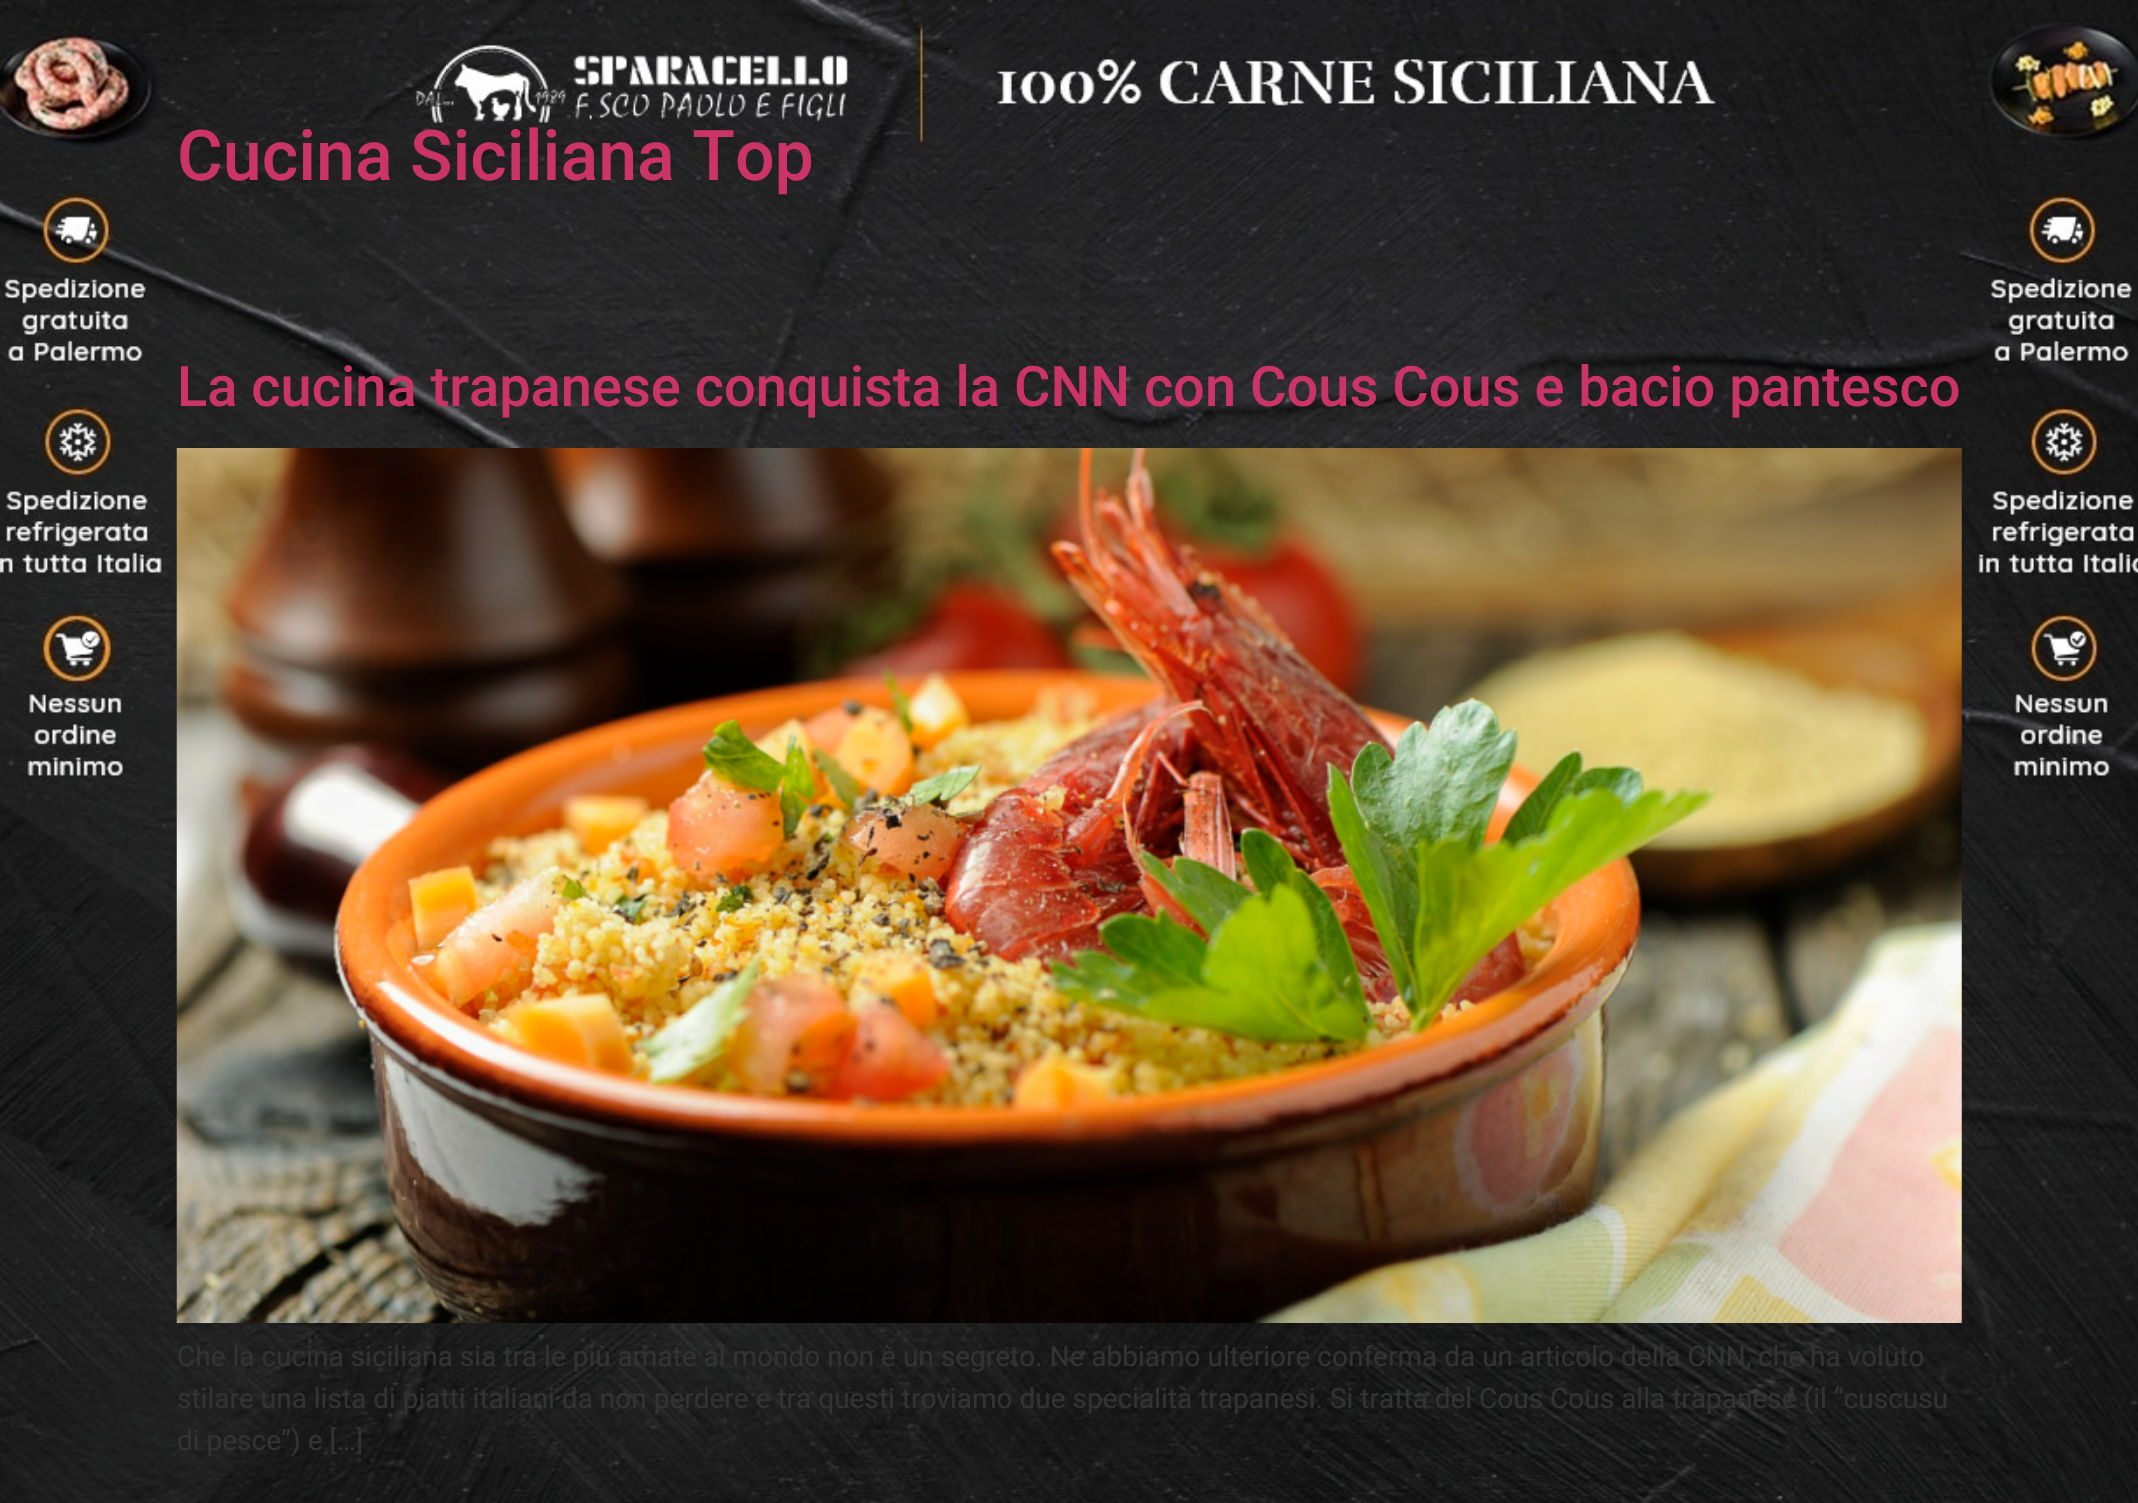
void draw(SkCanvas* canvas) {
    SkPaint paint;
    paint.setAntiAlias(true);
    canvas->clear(0xFFFFFFFF);
    canvas->drawImageRect(SkImages::DeferredFromEncodedData(SkData::MakeFromFileName("img1.png")), SkRect::MakeXYWH(0, 0, 2138, 1503), SkSamplingOptions());
    SkFont font1(fontMgr->matchFamilyStyle("Roboto", SkFontStyle(500, SkFontStyle::kNormal_Width, SkFontStyle::kUpright_Slant)), 70);
    font1.setSubpixel(true);
    paint.setColor(0xFFCC3366);
    canvas->drawString("Cucina Siciliana Top", 177, 180, font1, paint);
    SkFont font2(fontMgr->matchFamilyStyle("Roboto", SkFontStyle(500, SkFontStyle::kNormal_Width, SkFontStyle::kUpright_Slant)), 56);
    font2.setSubpixel(true);
    canvas->drawString("La cucina trapanese conquista la CNN con Cous Cous e bacio pantesco", 177, 406, font2, paint);
    canvas->drawImageRect(SkImages::DeferredFromEncodedData(SkData::MakeFromFileName("img2.png")), SkRect::MakeXYWH(176, 448, 1786, 875), SkSamplingOptions());
    SkFont font3(fontMgr->matchFamilyStyle("Roboto", SkFontStyle::Normal()), 28);
    font3.setSubpixel(true);
    paint.setColor(0xFF333333);
    canvas->drawString("Che la cucina siciliana sia tra le più amate al mondo non è un segreto. Ne abbiamo ulteriore conferma da un articolo della CNN, che ha voluto", 177, 1366, font3, paint);
    canvas->drawString("stilare una lista di piatti italiani da non perdere e tra questi troviamo due specialità trapanesi. Si tratta del Cous Cous alla trapanese (il “cuscusu", 177, 1408, font3, paint);
    canvas->drawString("di pesce”) e […]", 177, 1450, font3, paint);
}
